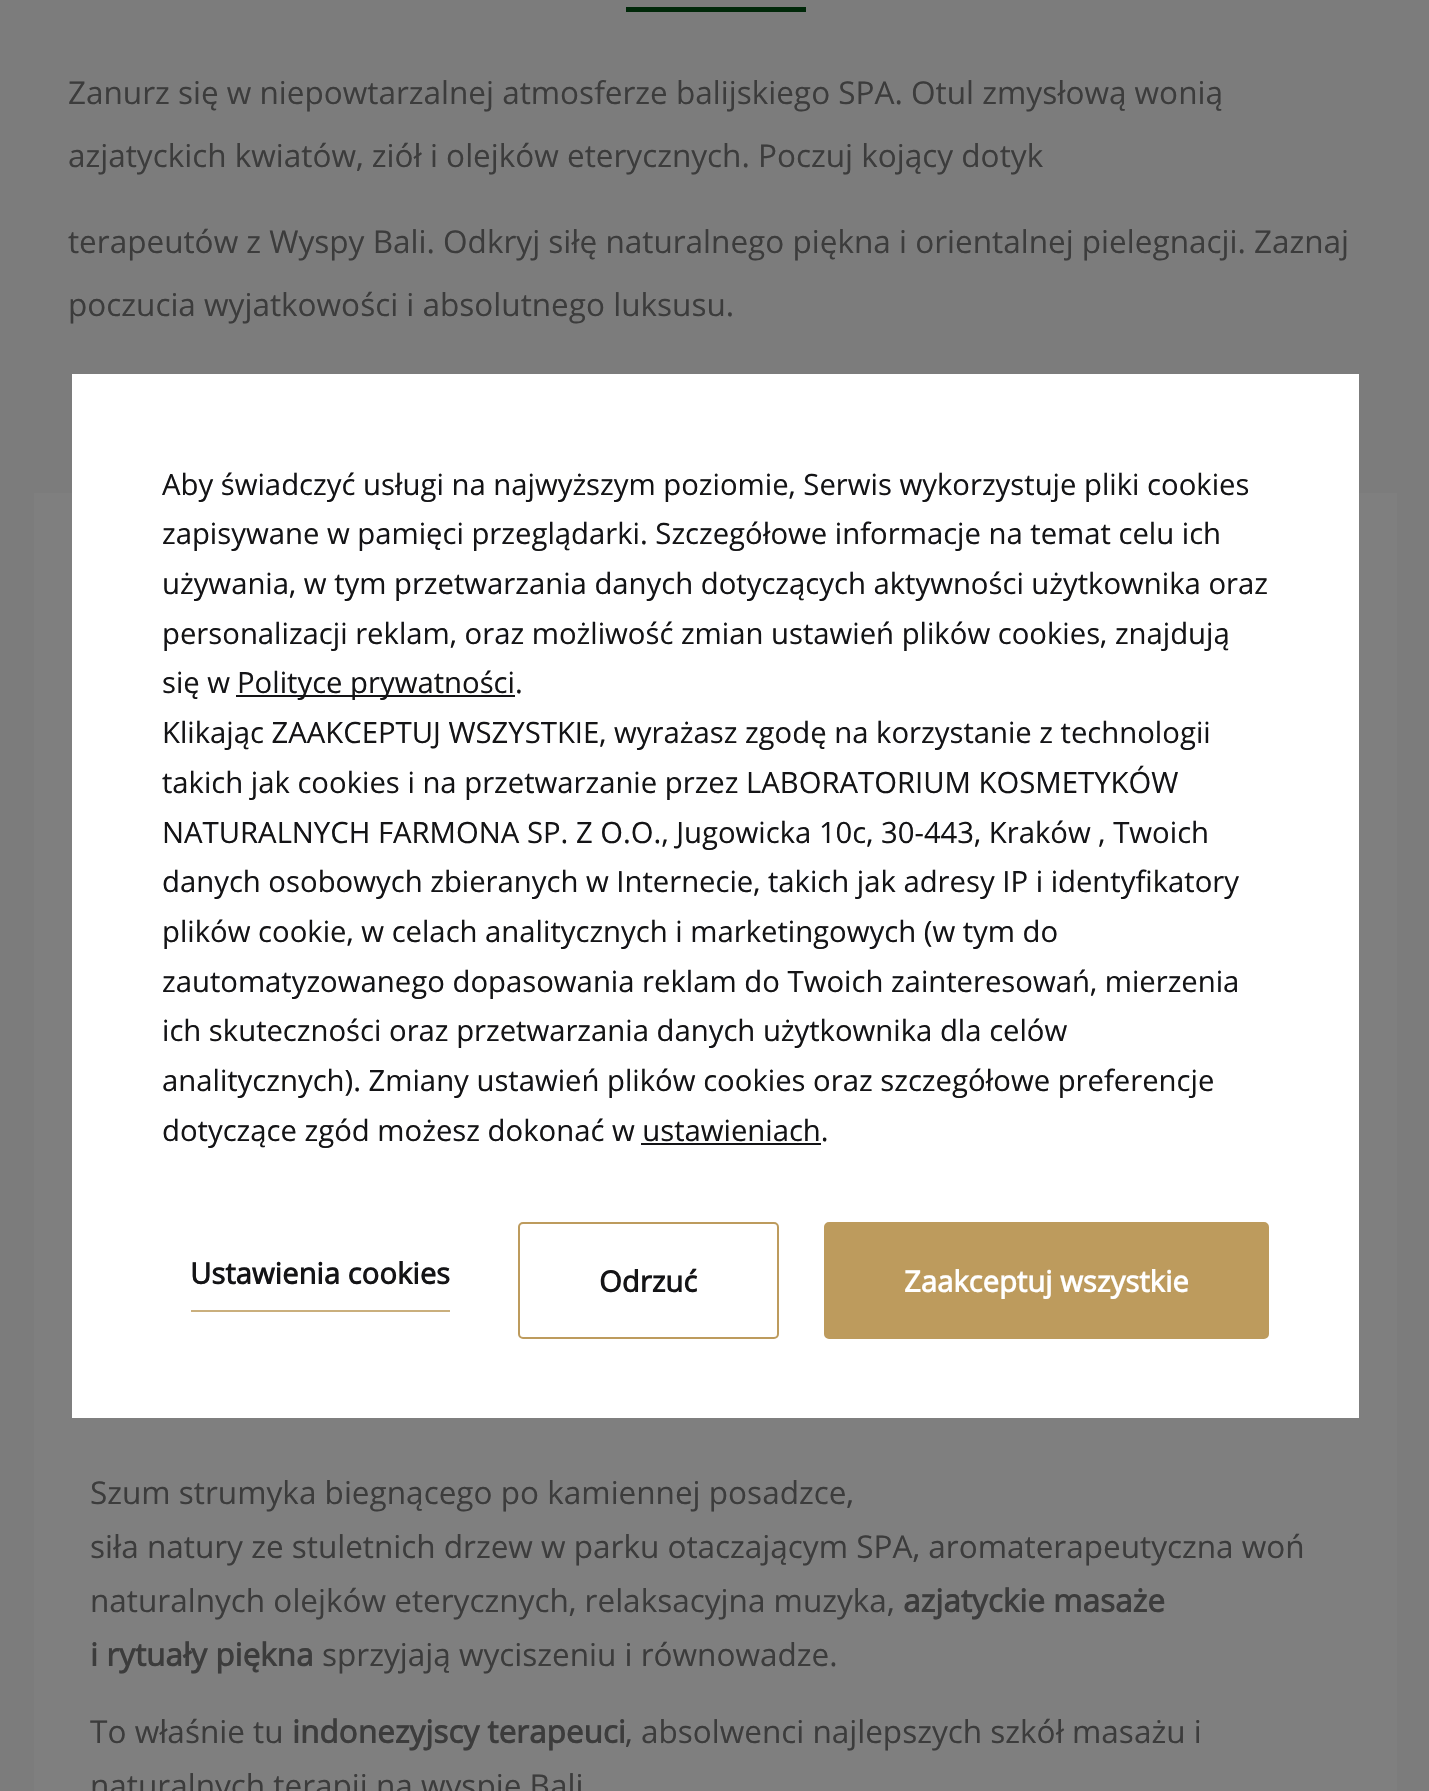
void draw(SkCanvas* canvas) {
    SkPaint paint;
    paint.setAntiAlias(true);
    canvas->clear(0xFF7C7C7C);
    paint.setColor(0xFF002809);
    canvas->drawRect(SkRect::MakeXYWH(626, 7, 180, 5), paint);
    SkFont font1(fontMgr->matchFamilyStyle("Open Sans", SkFontStyle::Normal()), 31.5f);
    font1.setSubpixel(true);
    paint.setColor(0xFF3C3C3C);
    canvas->drawString("Zanurz się w niepowtarzalnej atmosferze balijskiego SPA. Otul zmysłową wonią", 68, 104, font1, paint);
    canvas->drawString("azjatyckich kwiatów, ziół i olejków eterycznych. Poczuj kojący dotyk", 68, 167, font1, paint);
    canvas->drawString("terapeutów z Wyspy Bali. Odkryj siłę naturalnego piękna i orientalnej pielegnacji. Zaznaj", 68, 253, font1, paint);
    canvas->drawString("poczucia wyjatkowości i absolutnego luksusu.", 68, 316, font1, paint);
    paint.setColor(0xFF7F7F7F);
    canvas->drawRect(SkRect::MakeXYWH(34, 493, 1363, 1298), paint);
    paint.setColor(0xFF3C3C3C);
    canvas->drawString("Szum strumyka biegnącego po kamiennej posadzce,", 90, 1504, font1, paint);
    canvas->drawString("siła natury ze stuletnich drzew w parku otaczającym SPA, aromaterapeutyczna woń", 90, 1558, font1, paint);
    canvas->drawString("naturalnych olejków eterycznych, relaksacyjna muzyka,", 90, 1612, font1, paint);
    SkFont font2(fontMgr->matchFamilyStyle("Open Sans", SkFontStyle::Bold()), 31.5f);
    font2.setSubpixel(true);
    canvas->drawString("azjatyckie masaże", 903, 1612, font2, paint);
    canvas->drawString("i rytuały piękna", 90, 1666, font2, paint);
    canvas->drawString("sprzyjają wyciszeniu i równowadze.", 322, 1666, font1, paint);
    canvas->drawString("To właśnie tu", 90, 1743, font1, paint);
    canvas->drawString("indonezyjscy terapeuci", 292, 1743, font2, paint);
    canvas->drawString(", absolwenci najlepszych szkół masażu i", 625, 1743, font1, paint);
    canvas->drawString("naturalnych terapii na wyspie Bali", 90, 1797, font1, paint);
    paint.setColor(0xFFFFFFFF);
    canvas->drawRect(SkRect::MakeXYWH(72, 374, 1287, 1044), paint);
    SkFont font3(fontMgr->matchFamilyStyle("Open Sans", SkFontStyle::Normal()), 29.25f);
    font3.setSubpixel(true);
    paint.setColor(0xFF141416);
    canvas->drawString("Aby świadczyć usługi na najwyższym poziomie, Serwis wykorzystuje pliki cookies", 162, 495, font3, paint);
    canvas->drawString("zapisywane w pamięci przeglądarki. Szczegółowe informacje na temat celu ich", 162, 544, font3, paint);
    canvas->drawString("używania, w tym przetwarzania danych dotyczących aktywności użytkownika oraz", 162, 594, font3, paint);
    canvas->drawString("personalizacji reklam, oraz możliwość zmian ustawień plików cookies, znajdują", 162, 644, font3, paint);
    canvas->drawString("się w", 162, 693, font3, paint);
    canvas->drawRect(SkRect::MakeXYWH(236, 695, 279, 2), paint);
    canvas->drawString("Polityce prywatności.", 237, 693, font3, paint);
    canvas->drawString("Klikając ZAAKCEPTUJ WSZYSTKIE, wyrażasz zgodę na korzystanie z technologii", 162, 743, font3, paint);
    canvas->drawString("takich jak cookies i na przetwarzanie przez LABORATORIUM KOSMETYKÓW", 162, 793, font3, paint);
    canvas->drawString("NATURALNYCH FARMONA SP. Z O.O., Jugowicka 10c, 30-443, Kraków , Twoich", 162, 843, font3, paint);
    canvas->drawString("danych osobowych zbieranych w Internecie, takich jak adresy IP i identyfikatory", 162, 892, font3, paint);
    canvas->drawString("plików cookie, w celach analitycznych i marketingowych (w tym do", 162, 942, font3, paint);
    canvas->drawString("zautomatyzowanego dopasowania reklam do Twoich zainteresowań, mierzenia", 162, 992, font3, paint);
    canvas->drawString("ich skuteczności oraz przetwarzania danych użytkownika dla celów", 162, 1041, font3, paint);
    canvas->drawString("analitycznych). Zmiany ustawień plików cookies oraz szczegółowe preferencje", 162, 1091, font3, paint);
    canvas->drawString("dotyczące zgód możesz dokonać w ustawieniach.", 162, 1141, font3, paint);
    canvas->drawRect(SkRect::MakeXYWH(641, 1143, 180, 2), paint);
    SkFont font4(fontMgr->matchFamilyStyle("Open Sans", SkFontStyle::Bold()), 29.25f);
    font4.setSubpixel(true);
    canvas->drawString("Ustawienia cookies", 190, 1284, font4, paint);
    paint.setColor(0xFFCAAF7D);
    canvas->drawRect(SkRect::MakeXYWH(191, 1310, 259, 2), paint);
    paint.setStyle(SkPaint::kStroke_Style);
    paint.setStrokeWidth(2);
    paint.setColor(0xFFBD9B5D);
    canvas->drawRoundRect(SkRect::MakeXYWH(519, 1223, 259, 115), 4, 4, paint);
    paint.setStyle(SkPaint::kFill_Style);
    paint.setColor(0xFF141416);
    canvas->drawString("Odrzuć", 599, 1292, font4, paint);
    paint.setStyle(SkPaint::kStroke_Style);
    paint.setColor(0xFFBD9B5D);
    canvas->drawRoundRect(SkRect::MakeXYWH(825, 1223, 443, 115), 4, 4, paint);
    paint.setStyle(SkPaint::kFill_Style);
    canvas->drawRect(SkRect::MakeXYWH(826, 1224, 441, 113), paint);
    paint.setColor(0xFFFFFFFF);
    canvas->drawString("Zaakceptuj wszystkie", 904, 1292, font4, paint);
}
